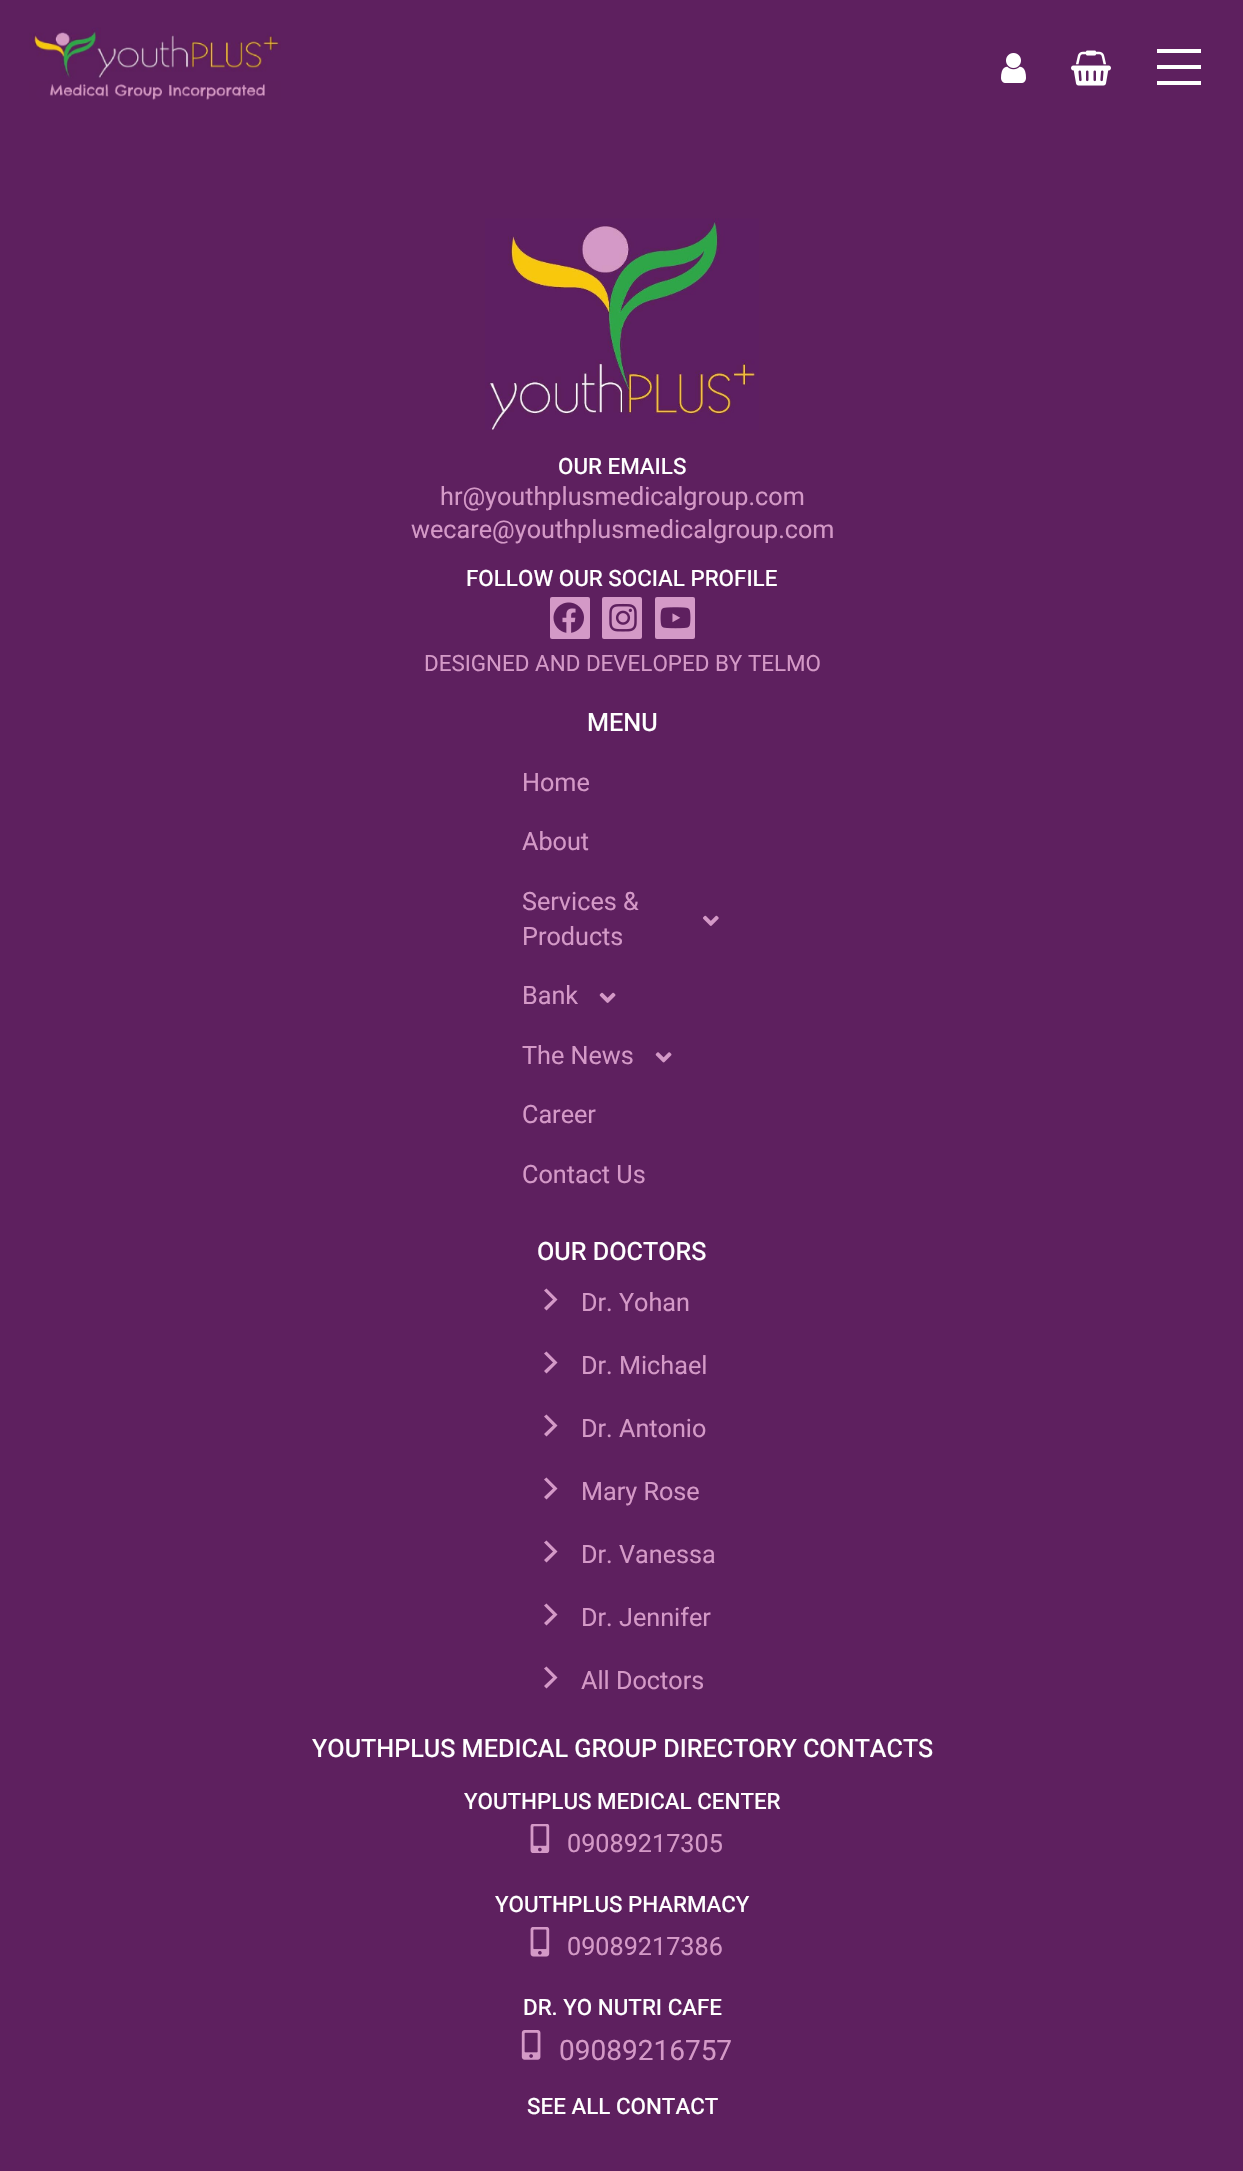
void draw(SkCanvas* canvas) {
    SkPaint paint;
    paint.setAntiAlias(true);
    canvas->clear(0xFF5E205F);
    canvas->drawImageRect(SkImages::DeferredFromEncodedData(SkData::MakeFromFileName("img1.png")), SkRect::MakeXYWH(29, 27, 252, 73), SkSamplingOptions());
    canvas->drawImageRect(SkImages::DeferredFromEncodedData(SkData::MakeFromFileName("img2.png")), SkRect::MakeXYWH(1001, 53, 25, 30), SkSamplingOptions());
    canvas->drawImageRect(SkImages::DeferredFromEncodedData(SkData::MakeFromFileName("img3.png")), SkRect::MakeXYWH(1071, 50, 40, 36), SkSamplingOptions());
    paint.setColor(0xFFFFFFFF);
    canvas->drawRect(SkRect::MakeXYWH(1157, 49, 44, 4), paint);
    canvas->drawRect(SkRect::MakeXYWH(1157, 65, 44, 4), paint);
    canvas->drawRect(SkRect::MakeXYWH(1157, 81, 44, 4), paint);
    canvas->drawImageRect(SkImages::DeferredFromEncodedData(SkData::MakeFromFileName("img4.png")), SkRect::MakeXYWH(485, 218, 274, 212), SkSamplingOptions());
    SkFont font1(fontMgr->matchFamilyStyle("Heebo", SkFontStyle(500, SkFontStyle::kNormal_Width, SkFontStyle::kUpright_Slant)), 22.4f);
    font1.setSubpixel(true);
    canvas->drawString("OUR EMAILS", 558, 474, font1, paint);
    SkFont font2(fontMgr->matchFamilyStyle("Roboto", SkFontStyle::Normal()), 25.2f);
    font2.setSubpixel(true);
    paint.setColor(0xFFD499C7);
    canvas->drawString("hr@youthplusmedicalgroup.com", 440, 505, font2, paint);
    canvas->drawString("wecare@youthplusmedicalgroup.com", 411, 538, font2, paint);
    paint.setColor(0xFFFFFFFF);
    canvas->drawString("FOLLOW OUR SOCIAL PROFILE", 466, 586, font1, paint);
    paint.setColor(0xFFD499C7);
    canvas->drawRoundRect(SkRect::MakeXYWH(549, 596, 42, 44), 3, 3, paint);
    paint.setStyle(SkPaint::kStroke_Style);
    paint.setStrokeWidth(2);
    paint.setColor(0xFF5E205F);
    canvas->drawRoundRect(SkRect::MakeXYWH(549, 596, 42, 44), 3, 3, paint);
    canvas->drawImageRect(SkImages::DeferredFromEncodedData(SkData::MakeFromFileName("img5.png")), SkRect::MakeXYWH(553, 602, 31, 31), SkSamplingOptions());
    paint.setStyle(SkPaint::kFill_Style);
    paint.setColor(0xFFD499C7);
    canvas->drawRoundRect(SkRect::MakeXYWH(601, 596, 42, 44), 3, 3, paint);
    paint.setStyle(SkPaint::kStroke_Style);
    paint.setColor(0xFF5E205F);
    canvas->drawRoundRect(SkRect::MakeXYWH(601, 596, 42, 44), 3, 3, paint);
    canvas->drawImageRect(SkImages::DeferredFromEncodedData(SkData::MakeFromFileName("img6.png")), SkRect::MakeXYWH(609, 603, 28, 29), SkSamplingOptions());
    paint.setStyle(SkPaint::kFill_Style);
    paint.setColor(0xFFD499C7);
    canvas->drawRoundRect(SkRect::MakeXYWH(654, 596, 42, 44), 3, 3, paint);
    paint.setStyle(SkPaint::kStroke_Style);
    paint.setColor(0xFF5E205F);
    canvas->drawRoundRect(SkRect::MakeXYWH(654, 596, 42, 44), 3, 3, paint);
    canvas->drawImageRect(SkImages::DeferredFromEncodedData(SkData::MakeFromFileName("img7.png")), SkRect::MakeXYWH(660, 607, 31, 22), SkSamplingOptions());
    SkFont font3(fontMgr->matchFamilyStyle("Roboto", SkFontStyle::Normal()), 22.4f);
    font3.setSubpixel(true);
    paint.setStyle(SkPaint::kFill_Style);
    paint.setColor(0xFFD499C7);
    canvas->drawString("DESIGNED AND DEVELOPED BY TELMO", 424, 671, font3, paint);
    SkFont font4(fontMgr->matchFamilyStyle("Heebo", SkFontStyle(500, SkFontStyle::kNormal_Width, SkFontStyle::kUpright_Slant)), 25.2f);
    font4.setSubpixel(true);
    paint.setColor(0xFFFFFFFF);
    canvas->drawString("MENU", 587, 731, font4, paint);
    paint.setColor(0xFFD499C7);
    canvas->drawString("Home", 522, 791, font2, paint);
    canvas->drawString("About", 522, 850, font2, paint);
    canvas->drawString("Services &", 522, 910, font2, paint);
    canvas->drawImageRect(SkImages::DeferredFromEncodedData(SkData::MakeFromFileName("img8.png")), SkRect::MakeXYWH(703, 915, 16, 11), SkSamplingOptions());
    canvas->drawString("Products", 522, 945, font2, paint);
    canvas->drawString("Bank", 522, 1004, font2, paint);
    canvas->drawImageRect(SkImages::DeferredFromEncodedData(SkData::MakeFromFileName("img9.png")), SkRect::MakeXYWH(599, 992, 17, 11), SkSamplingOptions());
    canvas->drawString("The News", 522, 1064, font2, paint);
    canvas->drawImageRect(SkImages::DeferredFromEncodedData(SkData::MakeFromFileName("img10.png")), SkRect::MakeXYWH(655, 1052, 17, 11), SkSamplingOptions());
    canvas->drawString("Career", 522, 1123, font2, paint);
    canvas->drawString("Contact Us", 522, 1183, font2, paint);
    paint.setColor(0xFFFFFFFF);
    canvas->drawString("OUR DOCTORS", 537, 1260, font4, paint);
    paint.setColor(0xFFD499C7);
    canvas->drawPath(SkPathBuilder().moveTo(544, 1290.5f).lineTo(546.5f, 1288.5f).lineTo(557.5f, 1299.5f).lineTo(546.5f, 1310.5f).lineTo(544, 1308).lineTo(553, 1299.5f).close().detach(), paint);
    canvas->drawString("Dr. Yohan", 581, 1311, font2, paint);
    canvas->drawPath(SkPathBuilder().moveTo(544, 1353.5f).lineTo(546.5f, 1351.5f).lineTo(557.5f, 1362.5f).lineTo(546.5f, 1373.5f).lineTo(544, 1371).lineTo(553, 1362.5f).close().detach(), paint);
    canvas->drawString("Dr. Michael", 581, 1374, font2, paint);
    canvas->drawPath(SkPathBuilder().moveTo(544, 1416.5f).lineTo(546.5f, 1414.5f).lineTo(557.5f, 1425.5f).lineTo(546.5f, 1436.5f).lineTo(544, 1434).lineTo(553, 1425.5f).close().detach(), paint);
    canvas->drawString("Dr. Antonio", 581, 1437, font2, paint);
    canvas->drawPath(SkPathBuilder().moveTo(544, 1479.5f).lineTo(546.5f, 1477.5f).lineTo(557.5f, 1488.5f).lineTo(546.5f, 1499.5f).lineTo(544, 1497).lineTo(553, 1488.5f).close().detach(), paint);
    canvas->drawString("Mary Rose", 581, 1500, font2, paint);
    canvas->drawPath(SkPathBuilder().moveTo(544, 1542.5f).lineTo(546.5f, 1540.5f).lineTo(557.5f, 1551.5f).lineTo(546.5f, 1562.5f).lineTo(544, 1560).lineTo(553, 1551.5f).close().detach(), paint);
    canvas->drawString("Dr. Vanessa", 581, 1563, font2, paint);
    canvas->drawPath(SkPathBuilder().moveTo(544, 1605.5f).lineTo(546.5f, 1603.5f).lineTo(557.5f, 1614.5f).lineTo(546.5f, 1625.5f).lineTo(544, 1623).lineTo(553, 1614.5f).close().detach(), paint);
    canvas->drawString("Dr. Jennifer", 581, 1626, font2, paint);
    canvas->drawPath(SkPathBuilder().moveTo(544, 1668.5f).lineTo(546.5f, 1666.5f).lineTo(557.5f, 1677.5f).lineTo(546.5f, 1688.5f).lineTo(544, 1686).lineTo(553, 1677.5f).close().detach(), paint);
    canvas->drawString("All Doctors", 581, 1689, font2, paint);
    paint.setColor(0xFFFFFFFF);
    canvas->drawString("YOUTHPLUS MEDICAL GROUP DIRECTORY CONTACTS", 312, 1757, font4, paint);
    canvas->drawString("YOUTHPLUS MEDICAL CENTER", 464, 1809, font1, paint);
    canvas->drawImageRect(SkImages::DeferredFromEncodedData(SkData::MakeFromFileName("img11.png")), SkRect::MakeXYWH(530, 1824, 20, 29), SkSamplingOptions());
    paint.setColor(0xFFD499C7);
    canvas->drawString("09089217305", 567, 1852, font2, paint);
    paint.setColor(0xFFFFFFFF);
    canvas->drawString("YOUTHPLUS PHARMACY", 495, 1912, font1, paint);
    canvas->drawImageRect(SkImages::DeferredFromEncodedData(SkData::MakeFromFileName("img12.png")), SkRect::MakeXYWH(530, 1927, 20, 30), SkSamplingOptions());
    paint.setColor(0xFFD499C7);
    canvas->drawString("09089217386", 567, 1955, font2, paint);
    paint.setColor(0xFFFFFFFF);
    canvas->drawString("DR. YO NUTRI CAFE", 523, 2015, font1, paint);
    canvas->drawImageRect(SkImages::DeferredFromEncodedData(SkData::MakeFromFileName("img13.png")), SkRect::MakeXYWH(521, 2030, 20, 30), SkSamplingOptions());
    SkFont font5(fontMgr->matchFamilyStyle("Roboto", SkFontStyle::Normal()), 28);
    font5.setSubpixel(true);
    paint.setColor(0xFFD499C7);
    canvas->drawString("09089216757", 559, 2060, font5, paint);
    paint.setColor(0xFFFFFFFF);
    canvas->drawString("SEE ALL CONTACT", 527, 2114, font1, paint);
}
